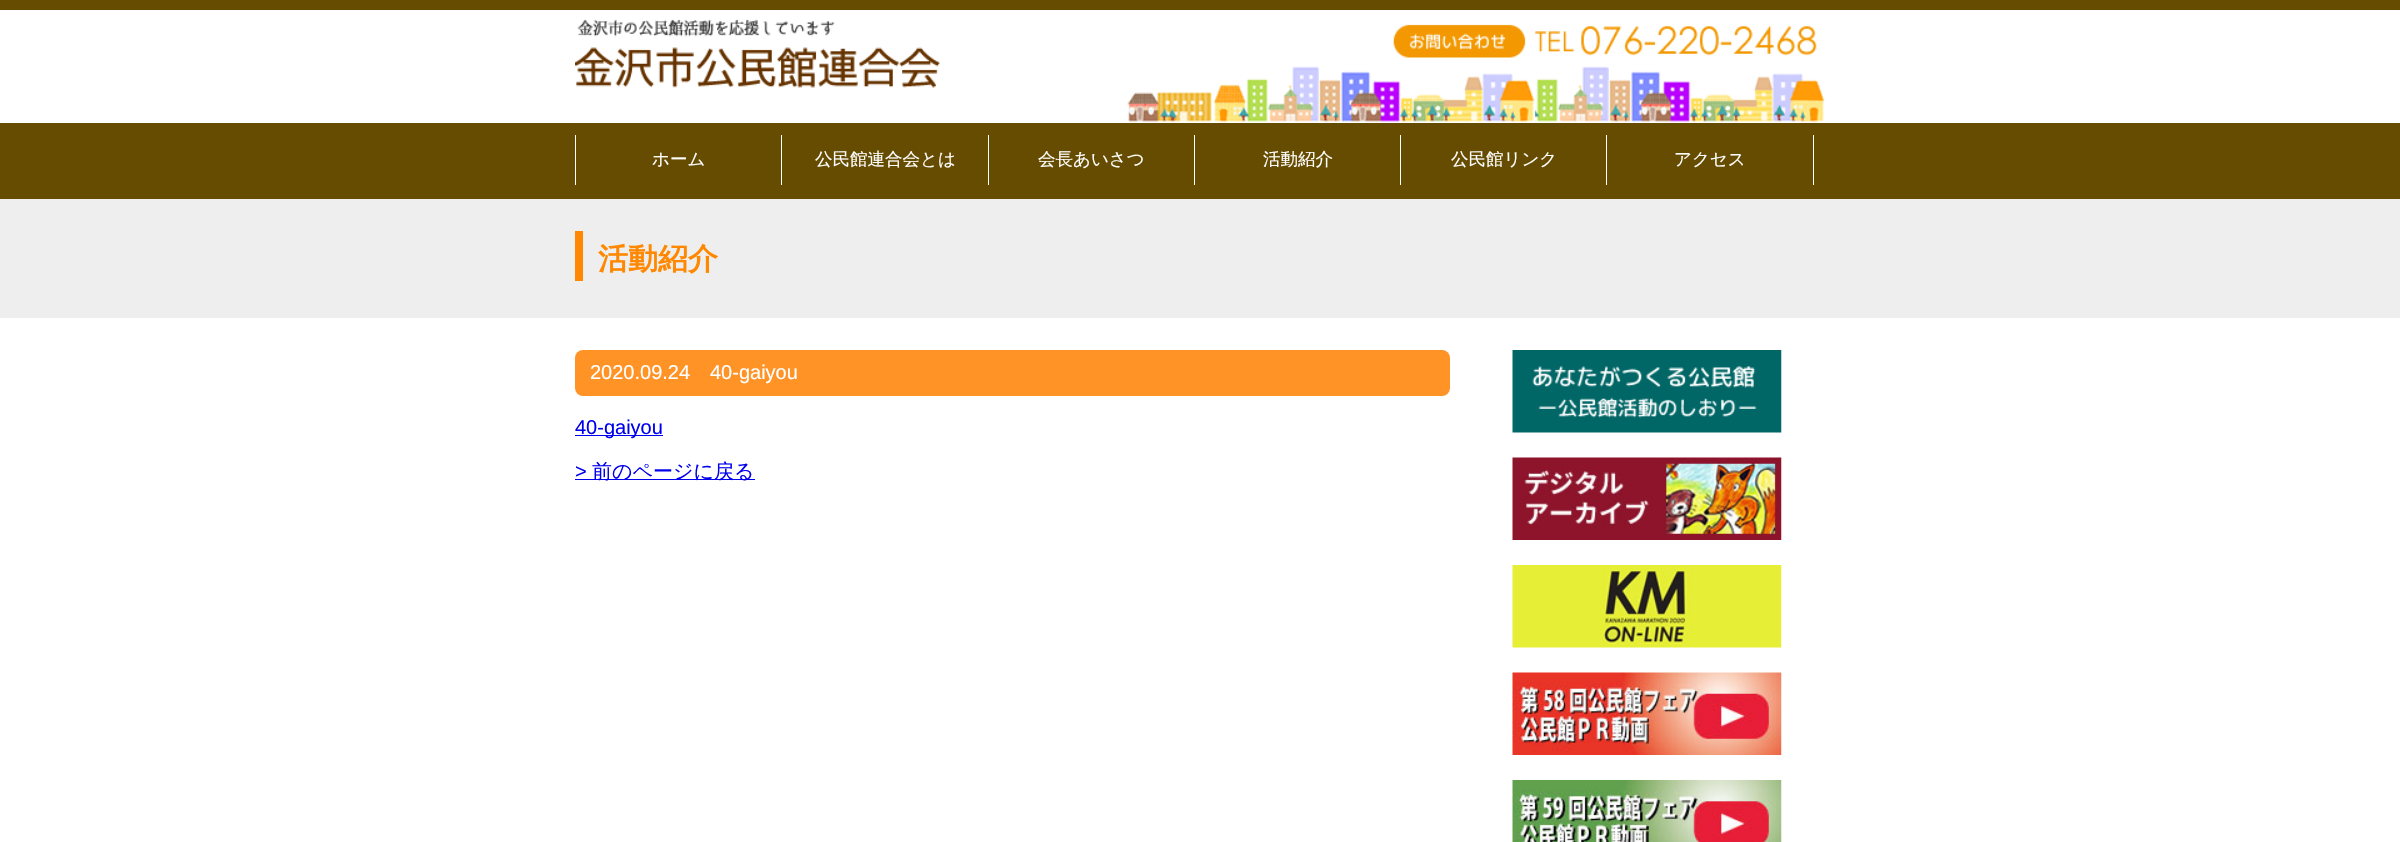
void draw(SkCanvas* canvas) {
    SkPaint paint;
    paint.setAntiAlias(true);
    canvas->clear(0xFFFFFFFF);
    paint.setColor(0xFF664C00);
    canvas->drawRect(SkRect::MakeXYWH(0, 0, 2400, 10), paint);
    canvas->drawImageRect(SkImages::DeferredFromEncodedData(SkData::MakeFromFileName("img1.png")), SkRect::MakeXYWH(1127, 66, 698, 57), SkSamplingOptions());
    canvas->drawImageRect(SkImages::DeferredFromEncodedData(SkData::MakeFromFileName("img2.png")), SkRect::MakeXYWH(575, 19, 365, 69), SkSamplingOptions());
    canvas->drawImageRect(SkImages::DeferredFromEncodedData(SkData::MakeFromFileName("img3.png")), SkRect::MakeXYWH(1393, 24, 424, 34), SkSamplingOptions());
    canvas->drawRect(SkRect::MakeXYWH(0, 123, 2400, 76), paint);
    paint.setColor(0xFFFFFFFF);
    canvas->drawRect(SkRect::MakeXYWH(781, 135, 1, 50), paint);
    canvas->drawRect(SkRect::MakeXYWH(575, 135, 1, 50), paint);
    SkFont font1(fontMgr->matchFamilyStyle("WenQuanYi Zen Hei", SkFontStyle(500, SkFontStyle::kNormal_Width, SkFontStyle::kUpright_Slant)), 17.5f);
    font1.setSubpixel(true);
    canvas->drawString("ホーム", 652, 165, font1, paint);
    canvas->drawRect(SkRect::MakeXYWH(988, 135, 1, 50), paint);
    canvas->drawString("公民館連合会とは", 815, 165, font1, paint);
    canvas->drawRect(SkRect::MakeXYWH(1194, 135, 1, 50), paint);
    canvas->drawString("会長あいさつ", 1038, 165, font1, paint);
    canvas->drawRect(SkRect::MakeXYWH(1400, 135, 1, 50), paint);
    canvas->drawString("活動紹介", 1263, 165, font1, paint);
    canvas->drawRect(SkRect::MakeXYWH(1606, 135, 1, 50), paint);
    canvas->drawString("公民館リンク", 1451, 165, font1, paint);
    canvas->drawRect(SkRect::MakeXYWH(1813, 135, 1, 50), paint);
    canvas->drawString("アクセス", 1674, 165, font1, paint);
    paint.setColor(0xFFEEEEEE);
    canvas->drawRect(SkRect::MakeXYWH(0, 199, 2400, 119), paint);
    paint.setColor(0xFFFF8800);
    canvas->drawRect(SkRect::MakeXYWH(575, 231, 8, 50), paint);
    SkFont font2(fontMgr->matchFamilyStyle("WenQuanYi Zen Hei", SkFontStyle::Bold()), 30);
    font2.setSubpixel(true);
    canvas->drawString("活動紹介", 598, 269, font2, paint);
    paint.setColor(0xFFFF9326);
    canvas->drawRoundRect(SkRect::MakeXYWH(575, 350, 875, 46), 8, 8, paint);
    SkFont font3(fontMgr->matchFamilyStyle("Liberation Sans", SkFontStyle::Normal()), 20);
    font3.setSubpixel(true);
    paint.setColor(0xFFFFFFFF);
    canvas->drawString("2020.09.24", 590, 379, font3, paint);
    canvas->drawString("40-gaiyou", 710, 379, font3, paint);
    paint.setColor(0xFF0000EE);
    canvas->drawRect(SkRect::MakeXYWH(575, 435, 88, 1), paint);
    canvas->drawString("40-gaiyou", 575, 434, font3, paint);
    canvas->drawString(">", 575, 478, font3, paint);
    canvas->drawRect(SkRect::MakeXYWH(575, 479, 180, 1), paint);
    SkFont font4(fontMgr->matchFamilyStyle("WenQuanYi Zen Hei", SkFontStyle(500, SkFontStyle::kNormal_Width, SkFontStyle::kUpright_Slant)), 20);
    font4.setSubpixel(true);
    canvas->drawString("前のページに戻る", 592, 478, font4, paint);
    canvas->drawImageRect(SkImages::DeferredFromEncodedData(SkData::MakeFromFileName("img4.png")), SkRect::MakeXYWH(1512, 350, 270, 83), SkSamplingOptions());
    canvas->drawImageRect(SkImages::DeferredFromEncodedData(SkData::MakeFromFileName("img5.png")), SkRect::MakeXYWH(1512, 457, 270, 83), SkSamplingOptions());
    canvas->drawImageRect(SkImages::DeferredFromEncodedData(SkData::MakeFromFileName("img6.png")), SkRect::MakeXYWH(1512, 565, 270, 83), SkSamplingOptions());
    canvas->drawImageRect(SkImages::DeferredFromEncodedData(SkData::MakeFromFileName("img7.png")), SkRect::MakeXYWH(1512, 672, 270, 83), SkSamplingOptions());
    canvas->drawImageRect(SkImages::DeferredFromEncodedData(SkData::MakeFromFileName("img8.png")), SkRect::MakeXYWH(1512, 780, 270, 62), SkSamplingOptions());
}
